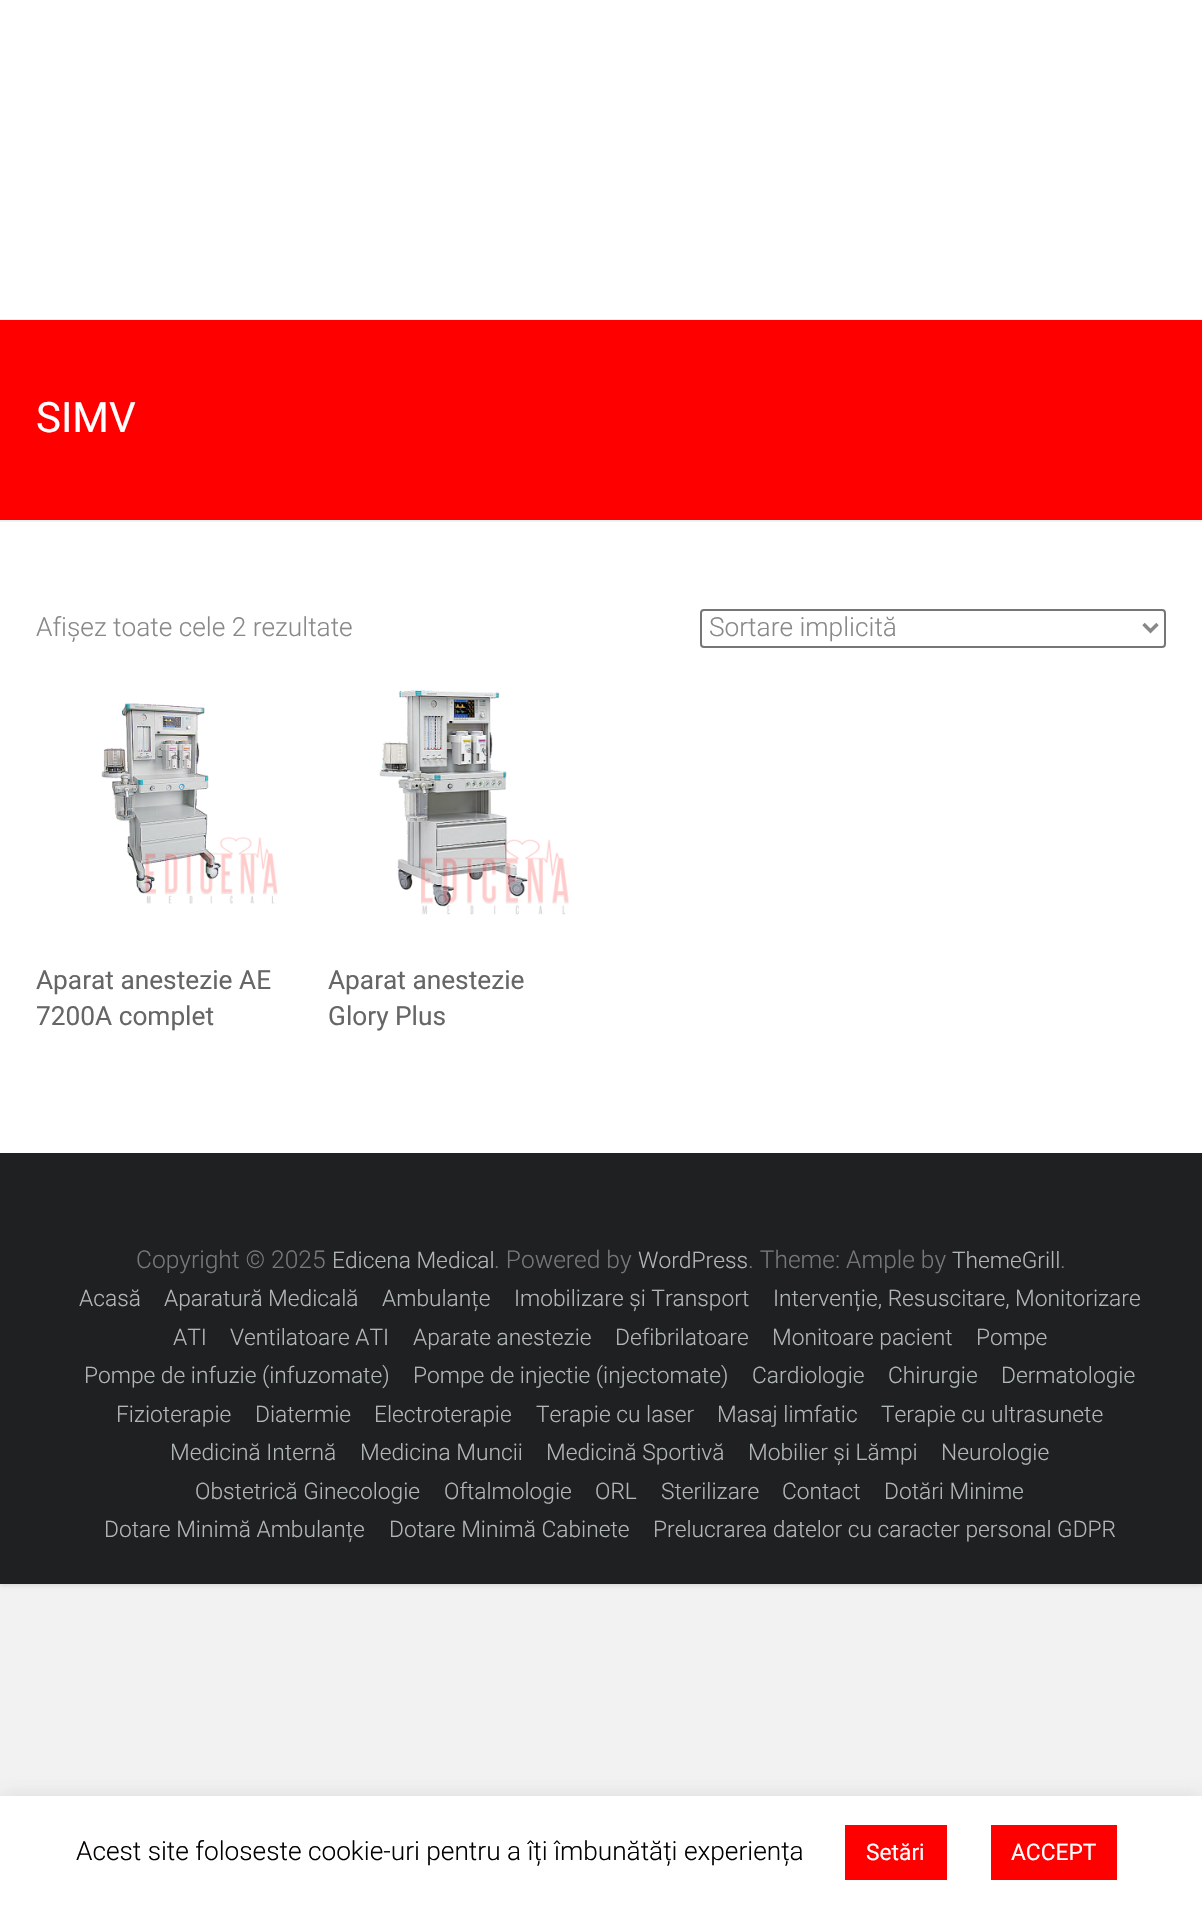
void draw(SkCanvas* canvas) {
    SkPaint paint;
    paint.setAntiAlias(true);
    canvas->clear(0xFFF2F2F2);
    paint.setColor(0x1A000000);
    paint.setMaskFilter(SkMaskFilter::MakeBlur(kNormal_SkBlurStyle, 2));
    canvas->drawRect(SkRect::MakeXYWH(0, 2, 1202, 1584), paint);
    paint.setMaskFilter(nullptr);
    paint.setColor(0xFFFFFFFF);
    canvas->drawRect(SkRect::MakeXYWH(0, 0, 1202, 1153), paint);
    paint.setColor(0xFFF2F2F2);
    canvas->drawRect(SkRect::MakeXYWH(0, 319, 1202, 1), paint);
    paint.setColor(0xFFFF0000);
    canvas->drawRect(SkRect::MakeXYWH(0, 320, 1202, 200), paint);
    paint.setColor(0xFFF2F2F2);
    canvas->drawRect(SkRect::MakeXYWH(0, 520, 1202, 2), paint);
    SkFont font1(fontMgr->matchFamilyStyle("Roboto", SkFontStyle::Normal()), 42);
    font1.setSubpixel(true);
    paint.setColor(0xFFFFFFFF);
    canvas->drawString("SIMV", 36, 432, font1, paint);
    SkFont font2(fontMgr->matchFamilyStyle("Roboto", SkFontStyle(300, SkFontStyle::kNormal_Width, SkFontStyle::kUpright_Slant)), 26.25f);
    font2.setSubpixel(true);
    paint.setColor(0xFF888888);
    canvas->drawString("Afișez toate cele 2 rezultate", 36, 636, font2, paint);
    paint.setStyle(SkPaint::kStroke_Style);
    paint.setStrokeWidth(2);
    paint.setColor(0xFF767676);
    canvas->drawRoundRect(SkRect::MakeXYWH(701, 610, 464, 37), 3, 3, paint);
    paint.setStrokeWidth(3.5f);
    paint.setColor(0xFF888888);
    canvas->drawPath(SkPathBuilder().moveTo(1143.5f, 624).lineTo(1150.5f, 631).lineTo(1157.5f, 624).detach(), paint);
    paint.setStyle(SkPaint::kFill_Style);
    canvas->drawString("Sortare implicită", 709, 636, font2, paint);
    canvas->drawImageRect(SkImages::DeferredFromEncodedData(SkData::MakeFromFileName("img1.png")), SkRect::MakeXYWH(101, 703, 177, 201), SkSamplingOptions());
    SkFont font3(fontMgr->matchFamilyStyle("Roboto", SkFontStyle::Normal()), 26.25f);
    font3.setSubpixel(true);
    paint.setColor(0xFF666666);
    canvas->drawString("Aparat anestezie AE", 36, 989, font3, paint);
    canvas->drawString("7200A complet", 36, 1025, font3, paint);
    canvas->drawImageRect(SkImages::DeferredFromEncodedData(SkData::MakeFromFileName("img2.png")), SkRect::MakeXYWH(379, 689, 190, 226), SkSamplingOptions());
    canvas->drawString("Aparat anestezie", 328, 989, font3, paint);
    canvas->drawString("Glory Plus", 328, 1025, font3, paint);
    paint.setColor(0xFF1F2021);
    canvas->drawRect(SkRect::MakeXYWH(0, 1153, 1202, 431), paint);
    SkFont font4(fontMgr->matchFamilyStyle("Roboto", SkFontStyle(300, SkFontStyle::kNormal_Width, SkFontStyle::kUpright_Slant)), 24.5f);
    font4.setSubpixel(true);
    paint.setColor(0xFF777777);
    canvas->drawString("Copyright © 2025", 136, 1268, font4, paint);
    SkFont font5(fontMgr->matchFamilyStyle("Roboto", SkFontStyle(300, SkFontStyle::kNormal_Width, SkFontStyle::kUpright_Slant)), 22.75f);
    font5.setSubpixel(true);
    paint.setColor(0xFFB1B6B6);
    canvas->drawString("Edicena Medical", 332, 1268, font5, paint);
    paint.setColor(0xFF777777);
    canvas->drawString(". Powered by", 494, 1268, font4, paint);
    paint.setColor(0xFFB1B6B6);
    canvas->drawString("WordPress", 638, 1268, font5, paint);
    paint.setColor(0xFF777777);
    canvas->drawString(". Theme: Ample by", 748, 1268, font4, paint);
    paint.setColor(0xFFB1B6B6);
    canvas->drawString("ThemeGrill", 952, 1268, font5, paint);
    paint.setColor(0xFF777777);
    canvas->drawString(".", 1060, 1268, font4, paint);
    paint.setColor(0xFFB1B6B6);
    canvas->drawString("Acasă", 79, 1306, font5, paint);
    canvas->drawString("Aparatură Medicală", 164, 1306, font5, paint);
    canvas->drawString("Ambulanțe", 382, 1306, font5, paint);
    canvas->drawString("Imobilizare și Transport", 514, 1306, font5, paint);
    canvas->drawString("Intervenție, Resuscitare, Monitorizare", 773, 1306, font5, paint);
    canvas->drawString("ATI", 173, 1345, font5, paint);
    canvas->drawString("Ventilatoare ATI", 230, 1345, font5, paint);
    canvas->drawString("Aparate anestezie", 413, 1345, font5, paint);
    canvas->drawString("Defibrilatoare", 615, 1345, font5, paint);
    canvas->drawString("Monitoare pacient", 772, 1345, font5, paint);
    canvas->drawString("Pompe", 976, 1345, font5, paint);
    canvas->drawString("Pompe de infuzie (infuzomate)", 84, 1383, font5, paint);
    canvas->drawString("Pompe de injectie (injectomate)", 413, 1383, font5, paint);
    canvas->drawString("Cardiologie", 752, 1383, font5, paint);
    canvas->drawString("Chirurgie", 888, 1383, font5, paint);
    canvas->drawString("Dermatologie", 1001, 1383, font5, paint);
    canvas->drawString("Fizioterapie", 116, 1422, font5, paint);
    canvas->drawString("Diatermie", 255, 1422, font5, paint);
    canvas->drawString("Electroterapie", 374, 1422, font5, paint);
    canvas->drawString("Terapie cu laser", 536, 1422, font5, paint);
    canvas->drawString("Masaj limfatic", 717, 1422, font5, paint);
    canvas->drawString("Terapie cu ultrasunete", 881, 1422, font5, paint);
    canvas->drawString("Medicină Internă", 170, 1460, font5, paint);
    canvas->drawString("Medicina Muncii", 360, 1460, font5, paint);
    canvas->drawString("Medicină Sportivă", 546, 1460, font5, paint);
    canvas->drawString("Mobilier și Lămpi", 748, 1460, font5, paint);
    canvas->drawString("Neurologie", 941, 1460, font5, paint);
    canvas->drawString("Obstetrică Ginecologie", 195, 1499, font5, paint);
    canvas->drawString("Oftalmologie", 444, 1499, font5, paint);
    canvas->drawString("ORL", 595, 1499, font5, paint);
    canvas->drawString("Sterilizare", 661, 1499, font5, paint);
    canvas->drawString("Contact", 782, 1499, font5, paint);
    canvas->drawString("Dotări Minime", 884, 1499, font5, paint);
    canvas->drawString("Dotare Minimă Ambulanțe", 104, 1537, font5, paint);
    canvas->drawString("Dotare Minimă Cabinete", 389, 1537, font5, paint);
    canvas->drawString("Prelucrarea datelor cu caracter personal GDPR", 653, 1537, font5, paint);
    paint.setColor(0x4DACABAB);
    paint.setMaskFilter(SkMaskFilter::MakeBlur(kNormal_SkBlurStyle, 9));
    canvas->drawRect(SkRect::MakeXYWH(0, 1794, 1202, 114), paint);
    paint.setMaskFilter(nullptr);
    paint.setColor(0xFFFFFFFF);
    canvas->drawRect(SkRect::MakeXYWH(0, 1796, 1202, 113), paint);
    paint.setColor(0xFF020000);
    canvas->drawString("Acest site foloseste cookie-uri pentru a îți îmbunătăți experiența", 76, 1860, font2, paint);
    paint.setColor(0xFFFF0000);
    canvas->drawRect(SkRect::MakeXYWH(845, 1825, 102, 55), paint);
    SkFont font6(fontMgr->matchFamilyStyle("Roboto", SkFontStyle::Normal()), 22.75f);
    font6.setSubpixel(true);
    paint.setColor(0xFFFFFFFF);
    canvas->drawString("Setări", 866, 1860, font6, paint);
    paint.setColor(0xFFFF0000);
    canvas->drawRect(SkRect::MakeXYWH(991, 1825, 126, 55), paint);
    paint.setColor(0xFFFFFFFF);
    canvas->drawString("ACCEPT", 1011, 1860, font6, paint);
}
